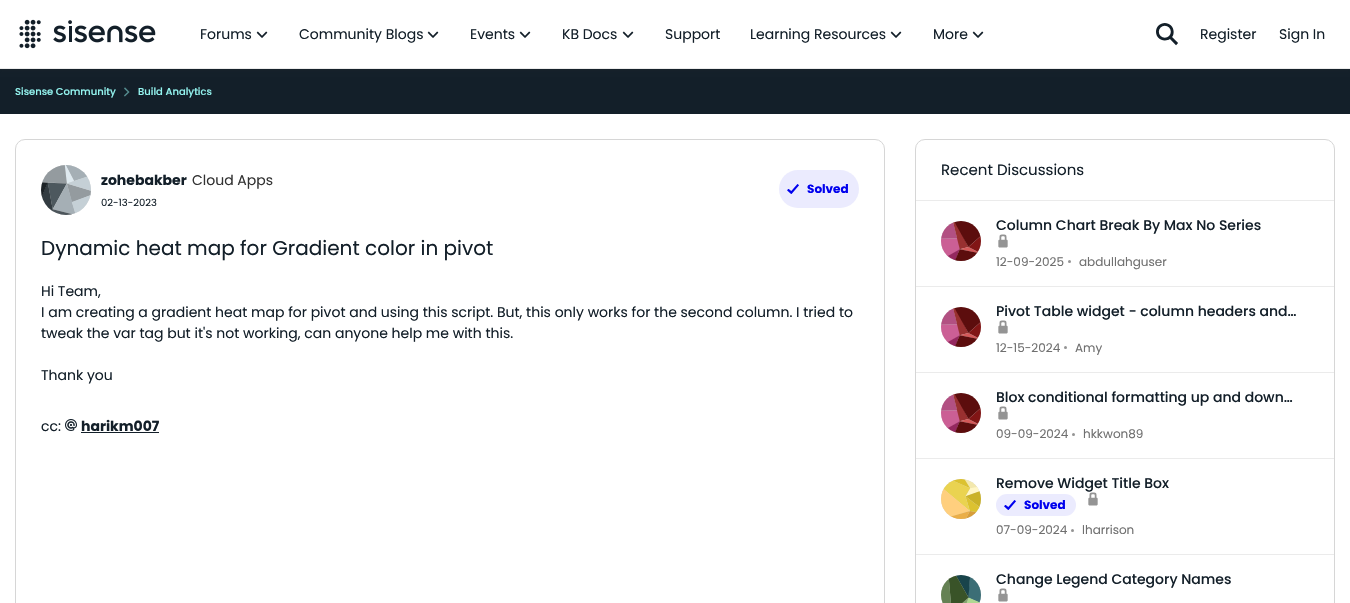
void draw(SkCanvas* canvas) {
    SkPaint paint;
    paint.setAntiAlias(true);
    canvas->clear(0xFFFFFFFF);
    paint.setColor(0xFF131F29);
    canvas->drawRect(SkRect::MakeXYWH(0, 69, 1350, 45), paint);
    paint.setColor(0x1F333333);
    paint.setMaskFilter(SkMaskFilter::MakeBlur(kNormal_SkBlurStyle, 2));
    canvas->drawRect(SkRect::MakeXYWH(0, 2, 1350, 69), paint);
    paint.setMaskFilter(nullptr);
    paint.setColor(0xFFFFFFFF);
    canvas->drawRect(SkRect::MakeXYWH(0, 0, 1350, 68), paint);
    paint.setColor(0xFFEBEBEB);
    canvas->drawRect(SkRect::MakeXYWH(0, 68, 1350, 1), paint);
    canvas->drawImageRect(SkImages::DeferredFromEncodedData(SkData::MakeFromFileName("img1.png")), SkRect::MakeXYWH(19, 19, 137, 30), SkSamplingOptions());
    SkFont font1(fontMgr->matchFamilyStyle("Poppins", SkFontStyle::Normal()), 14);
    font1.setSubpixel(true);
    paint.setColor(0xFF131F29);
    canvas->drawString("Forums", 200, 39, font1, paint);
    canvas->drawImageRect(SkImages::DeferredFromEncodedData(SkData::MakeFromFileName("img2.png")), SkRect::MakeXYWH(256, 31, 12, 7), SkSamplingOptions());
    canvas->drawString("Community Blogs", 299, 39, font1, paint);
    canvas->drawImageRect(SkImages::DeferredFromEncodedData(SkData::MakeFromFileName("img2.png")), SkRect::MakeXYWH(427, 31, 12, 7), SkSamplingOptions());
    canvas->drawString("Events", 470, 39, font1, paint);
    canvas->drawImageRect(SkImages::DeferredFromEncodedData(SkData::MakeFromFileName("img2.png")), SkRect::MakeXYWH(519, 31, 12, 7), SkSamplingOptions());
    canvas->drawString("KB Docs", 562, 39, font1, paint);
    canvas->drawImageRect(SkImages::DeferredFromEncodedData(SkData::MakeFromFileName("img2.png")), SkRect::MakeXYWH(622, 31, 12, 7), SkSamplingOptions());
    canvas->drawString("Support", 665, 39, font1, paint);
    canvas->drawString("Learning Resources", 750, 39, font1, paint);
    canvas->drawImageRect(SkImages::DeferredFromEncodedData(SkData::MakeFromFileName("img2.png")), SkRect::MakeXYWH(890, 31, 12, 7), SkSamplingOptions());
    canvas->drawString("More", 933, 39, font1, paint);
    canvas->drawImageRect(SkImages::DeferredFromEncodedData(SkData::MakeFromFileName("img2.png")), SkRect::MakeXYWH(972, 31, 12, 7), SkSamplingOptions());
    canvas->drawImageRect(SkImages::DeferredFromEncodedData(SkData::MakeFromFileName("img3.png")), SkRect::MakeXYWH(1156, 23, 22, 23), SkSamplingOptions());
    canvas->drawString("Register", 1200, 39, font1, paint);
    canvas->drawString("Sign In", 1279, 39, font1, paint);
    SkFont font2(fontMgr->matchFamilyStyle("Poppins", SkFontStyle(500, SkFontStyle::kNormal_Width, SkFontStyle::kUpright_Slant)), 10);
    font2.setSubpixel(true);
    paint.setColor(0xFF94F5F0);
    canvas->drawString("Sisense Community", 15, 95, font2, paint);
    canvas->drawImageRect(SkImages::DeferredFromEncodedData(SkData::MakeFromFileName("img4.png")), SkRect::MakeXYWH(124, 87, 6, 10), SkSamplingOptions());
    canvas->drawString("Build Analytics", 138, 95, font2, paint);
    paint.setStyle(SkPaint::kStroke_Style);
    paint.setStrokeWidth(1);
    paint.setColor(0xFFD6D6D6);
    canvas->drawRoundRect(SkRect::MakeXYWH(15.5f, 139.5f, 869, 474), 9.5f, 9.5f, paint);
    paint.setStyle(SkPaint::kFill_Style);
    paint.setColor(0xFFD9D9D9);
    canvas->drawCircle(66, 190, 25, paint);
    canvas->drawImageRect(SkImages::DeferredFromEncodedData(SkData::MakeFromFileName("img5.png")), SkRect::MakeXYWH(41, 165, 50, 50), SkSamplingOptions());
    SkFont font3(fontMgr->matchFamilyStyle("Poppins", SkFontStyle::Bold()), 14);
    font3.setSubpixel(true);
    paint.setColor(0xFF131F29);
    canvas->drawString("zohebakber", 101, 185, font3, paint);
    paint.setColor(0xFF333333);
    canvas->drawString("Cloud Apps", 192, 185, font1, paint);
    SkFont font4(fontMgr->matchFamilyStyle("Poppins", SkFontStyle::Normal()), 10);
    font4.setSubpixel(true);
    paint.setColor(0xFF131F29);
    canvas->drawString("02-13-2023", 101, 206, font4, paint);
    paint.setColor(0xFFEBEBFE);
    canvas->drawRoundRect(SkRect::MakeXYWH(779, 170, 80, 38), 19, 19, paint);
    canvas->drawImageRect(SkImages::DeferredFromEncodedData(SkData::MakeFromFileName("img6.png")), SkRect::MakeXYWH(787, 184, 12, 10), SkSamplingOptions());
    SkFont font5(fontMgr->matchFamilyStyle("Poppins", SkFontStyle::Bold()), 12);
    font5.setSubpixel(true);
    paint.setColor(0xFF0000EE);
    canvas->drawString("Solved", 807, 193, font5, paint);
    SkFont font6(fontMgr->matchFamilyStyle("Poppins", SkFontStyle::Normal()), 20);
    font6.setSubpixel(true);
    paint.setColor(0xFF131F29);
    canvas->drawString("Dynamic heat map for Gradient color in pivot", 41, 255, font6, paint);
    canvas->drawString("Hi Team,", 41, 296, font1, paint);
    canvas->drawString("I am creating a gradient heat map for pivot and using this script. But, this only works for the second column. I tried to", 41, 317, font1, paint);
    canvas->drawString("tweak the var tag but it's not working, can anyone help me with this.", 41, 338, font1, paint);
    canvas->drawString("Thank you", 41, 380, font1, paint);
    canvas->drawString("cc:", 41, 431, font1, paint);
    canvas->drawImageRect(SkImages::DeferredFromEncodedData(SkData::MakeFromFileName("img7.png")), SkRect::MakeXYWH(65, 419, 12, 12), SkSamplingOptions());
    canvas->drawString("harikm007", 81, 431, font3, paint);
    canvas->drawRect(SkRect::MakeXYWH(81, 432, 78, 1), paint);
    paint.setStyle(SkPaint::kStroke_Style);
    paint.setColor(0xFFD6D6D6);
    canvas->drawRoundRect(SkRect::MakeXYWH(915.5f, 139.5f, 419, 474), 9.5f, 9.5f, paint);
    paint.setStyle(SkPaint::kFill_Style);
    paint.setColor(0xFFEBEBEB);
    canvas->drawRect(SkRect::MakeXYWH(916, 200, 418, 1), paint);
    SkFont font7(fontMgr->matchFamilyStyle("Poppins", SkFontStyle::Normal()), 15);
    font7.setSubpixel(true);
    paint.setColor(0xFF131F29);
    canvas->drawString("Recent Discussions", 941, 175, font7, paint);
    paint.setColor(0xFFEBEBEB);
    canvas->drawRect(SkRect::MakeXYWH(916, 286, 418, 1), paint);
    paint.setColor(0xFFD9D9D9);
    canvas->drawCircle(961, 241, 20, paint);
    canvas->drawImageRect(SkImages::DeferredFromEncodedData(SkData::MakeFromFileName("img8.png")), SkRect::MakeXYWH(941, 221, 40, 40), SkSamplingOptions());
    SkFont font8(fontMgr->matchFamilyStyle("Poppins", SkFontStyle(500, SkFontStyle::kNormal_Width, SkFontStyle::kUpright_Slant)), 14);
    font8.setSubpixel(true);
    paint.setColor(0xFF131F29);
    canvas->drawString("Column Chart Break By Max No Series", 996, 230, font8, paint);
    canvas->drawImageRect(SkImages::DeferredFromEncodedData(SkData::MakeFromFileName("img9.png")), SkRect::MakeXYWH(998, 234, 10, 14), SkSamplingOptions());
    SkFont font9(fontMgr->matchFamilyStyle("Poppins", SkFontStyle::Normal()), 12);
    font9.setSubpixel(true);
    paint.setColor(0xFF707070);
    canvas->drawString("12-09-2025", 996, 266, font9, paint);
    paint.setColor(0xFF949494);
    canvas->drawCircle(1069.5f, 261.5f, 1.5f, paint);
    paint.setColor(0xFF707070);
    canvas->drawString("abdullahguser", 1079, 266, font9, paint);
    paint.setColor(0xFFEBEBEB);
    canvas->drawRect(SkRect::MakeXYWH(916, 372, 418, 1), paint);
    paint.setColor(0xFFD9D9D9);
    canvas->drawCircle(961, 327, 20, paint);
    canvas->drawImageRect(SkImages::DeferredFromEncodedData(SkData::MakeFromFileName("img10.png")), SkRect::MakeXYWH(941, 307, 40, 40), SkSamplingOptions());
    paint.setColor(0xFF131F29);
    canvas->drawString("Pivot Table widget - column headers and…", 996, 316, font8, paint);
    canvas->drawImageRect(SkImages::DeferredFromEncodedData(SkData::MakeFromFileName("img9.png")), SkRect::MakeXYWH(998, 320, 10, 14), SkSamplingOptions());
    paint.setColor(0xFF707070);
    canvas->drawString("12-15-2024", 996, 352, font9, paint);
    paint.setColor(0xFF949494);
    canvas->drawCircle(1065.5f, 347.5f, 1.5f, paint);
    paint.setColor(0xFF707070);
    canvas->drawString("Amy", 1075, 352, font9, paint);
    paint.setColor(0xFFEBEBEB);
    canvas->drawRect(SkRect::MakeXYWH(916, 458, 418, 1), paint);
    paint.setColor(0xFFD9D9D9);
    canvas->drawCircle(961, 413, 20, paint);
    canvas->drawImageRect(SkImages::DeferredFromEncodedData(SkData::MakeFromFileName("img10.png")), SkRect::MakeXYWH(941, 393, 40, 40), SkSamplingOptions());
    paint.setColor(0xFF131F29);
    canvas->drawString("Blox conditional formatting up and down…", 996, 402, font8, paint);
    canvas->drawImageRect(SkImages::DeferredFromEncodedData(SkData::MakeFromFileName("img9.png")), SkRect::MakeXYWH(998, 406, 10, 14), SkSamplingOptions());
    paint.setColor(0xFF707070);
    canvas->drawString("09-09-2024", 996, 438, font9, paint);
    paint.setColor(0xFF949494);
    canvas->drawCircle(1073.5f, 434.5f, 1.5f, paint);
    paint.setColor(0xFF707070);
    canvas->drawString("hkkwon89", 1083, 438, font9, paint);
    paint.setColor(0xFFEBEBEB);
    canvas->drawRect(SkRect::MakeXYWH(916, 554, 418, 1), paint);
    paint.setColor(0xFFD9D9D9);
    canvas->drawCircle(961, 499, 20, paint);
    canvas->drawImageRect(SkImages::DeferredFromEncodedData(SkData::MakeFromFileName("img11.png")), SkRect::MakeXYWH(941, 479, 40, 40), SkSamplingOptions());
    paint.setColor(0xFF131F29);
    canvas->drawString("Remove Widget Title Box", 996, 488, font8, paint);
    paint.setColor(0xFFEBEBFE);
    canvas->drawRoundRect(SkRect::MakeXYWH(996, 494, 80, 22), 11, 11, paint);
    canvas->drawImageRect(SkImages::DeferredFromEncodedData(SkData::MakeFromFileName("img12.png")), SkRect::MakeXYWH(1004, 500, 12, 10), SkSamplingOptions());
    paint.setColor(0xFF0000EE);
    canvas->drawString("Solved", 1024, 509, font5, paint);
    canvas->drawImageRect(SkImages::DeferredFromEncodedData(SkData::MakeFromFileName("img9.png")), SkRect::MakeXYWH(1088, 492, 10, 14), SkSamplingOptions());
    paint.setColor(0xFF707070);
    canvas->drawString("07-09-2024", 996, 534, font9, paint);
    paint.setColor(0xFF949494);
    canvas->drawCircle(1072.5f, 530.5f, 1.5f, paint);
    paint.setColor(0xFF707070);
    canvas->drawString("lharrison", 1082, 534, font9, paint);
    paint.setColor(0xFFD9D9D9);
    canvas->drawCircle(961, 595, 20, paint);
    canvas->drawImageRect(SkImages::DeferredFromEncodedData(SkData::MakeFromFileName("img13.png")), SkRect::MakeXYWH(941, 575, 40, 28), SkSamplingOptions());
    paint.setColor(0xFF131F29);
    canvas->drawString("Change Legend Category Names", 996, 584, font8, paint);
    canvas->drawImageRect(SkImages::DeferredFromEncodedData(SkData::MakeFromFileName("img9.png")), SkRect::MakeXYWH(998, 588, 10, 14), SkSamplingOptions());
}
